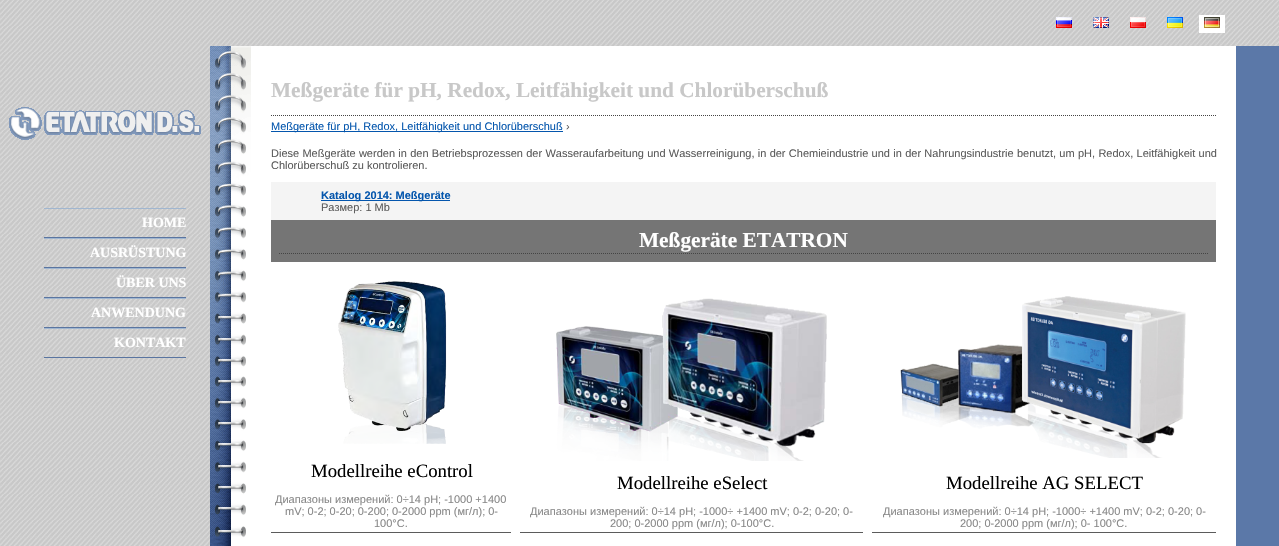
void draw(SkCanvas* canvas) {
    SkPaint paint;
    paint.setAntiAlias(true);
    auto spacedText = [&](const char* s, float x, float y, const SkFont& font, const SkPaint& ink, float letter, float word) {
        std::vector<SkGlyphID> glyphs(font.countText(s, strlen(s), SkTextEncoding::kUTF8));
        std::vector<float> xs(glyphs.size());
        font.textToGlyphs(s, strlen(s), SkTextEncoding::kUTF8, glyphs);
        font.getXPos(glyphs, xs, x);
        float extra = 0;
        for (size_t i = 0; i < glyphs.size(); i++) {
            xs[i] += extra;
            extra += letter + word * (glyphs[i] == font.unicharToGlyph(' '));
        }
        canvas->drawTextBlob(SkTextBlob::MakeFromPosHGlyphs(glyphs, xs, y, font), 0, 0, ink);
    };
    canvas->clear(0xFFFFFFFF);
    canvas->drawImageRect(SkImages::DeferredFromEncodedData(SkData::MakeFromFileName("img1.png")), SkRect::MakeXYWH(0, 0, 1279, 546), SkSamplingOptions());
    canvas->drawImageRect(SkImages::DeferredFromEncodedData(SkData::MakeFromFileName("img2.png")), SkRect::MakeXYWH(1056, 17, 16, 11), SkSamplingOptions());
    canvas->drawImageRect(SkImages::DeferredFromEncodedData(SkData::MakeFromFileName("img3.png")), SkRect::MakeXYWH(1093, 17, 16, 11), SkSamplingOptions());
    canvas->drawImageRect(SkImages::DeferredFromEncodedData(SkData::MakeFromFileName("img4.png")), SkRect::MakeXYWH(1130, 17, 16, 11), SkSamplingOptions());
    canvas->drawImageRect(SkImages::DeferredFromEncodedData(SkData::MakeFromFileName("img5.png")), SkRect::MakeXYWH(1167, 17, 16, 11), SkSamplingOptions());
    paint.setColor(0xFFFFFFFF);
    canvas->drawRect(SkRect::MakeXYWH(1199, 15, 26, 18), paint);
    canvas->drawImageRect(SkImages::DeferredFromEncodedData(SkData::MakeFromFileName("img6.png")), SkRect::MakeXYWH(1204, 17, 16, 11), SkSamplingOptions());
    canvas->drawImageRect(SkImages::DeferredFromEncodedData(SkData::MakeFromFileName("img7.png")), SkRect::MakeXYWH(9, 107, 192, 33), SkSamplingOptions());
    paint.setColor(0xFFA0B6D0);
    canvas->drawRect(SkRect::MakeXYWH(44, 208, 142, 1), paint);
    paint.setColor(0xFF5A75A0);
    canvas->drawRect(SkRect::MakeXYWH(44, 237, 142, 1), paint);
    SkFont font1(fontMgr->matchFamilyStyle("Liberation Serif", SkFontStyle::Bold()), 14);
    font1.setSubpixel(true);
    paint.setColor(0xFFFFFFFF);
    canvas->drawString("HOME", 142, 227, font1, paint);
    paint.setColor(0xFFA0B6D0);
    canvas->drawRect(SkRect::MakeXYWH(44, 238, 142, 1), paint);
    paint.setColor(0xFF5A75A0);
    canvas->drawRect(SkRect::MakeXYWH(44, 267, 142, 1), paint);
    paint.setColor(0xFFFFFFFF);
    canvas->drawString("AUSRÜSTUNG", 90, 257, font1, paint);
    paint.setColor(0xFFA0B6D0);
    canvas->drawRect(SkRect::MakeXYWH(44, 268, 142, 1), paint);
    paint.setColor(0xFF5A75A0);
    canvas->drawRect(SkRect::MakeXYWH(44, 297, 142, 1), paint);
    paint.setColor(0xFFFFFFFF);
    canvas->drawString("ÜBER UNS", 116, 287, font1, paint);
    paint.setColor(0xFFA0B6D0);
    canvas->drawRect(SkRect::MakeXYWH(44, 298, 142, 1), paint);
    paint.setColor(0xFF5A75A0);
    canvas->drawRect(SkRect::MakeXYWH(44, 327, 142, 1), paint);
    paint.setColor(0xFFFFFFFF);
    canvas->drawString("ANWENDUNG", 91, 317, font1, paint);
    paint.setColor(0xFFA0B6D0);
    canvas->drawRect(SkRect::MakeXYWH(44, 328, 142, 1), paint);
    paint.setColor(0xFF5A75A0);
    canvas->drawRect(SkRect::MakeXYWH(44, 357, 142, 1), paint);
    paint.setColor(0xFFFFFFFF);
    canvas->drawString("KONTAKT", 114, 347, font1, paint);
    canvas->drawImageRect(SkImages::DeferredFromEncodedData(SkData::MakeFromFileName("img8.png")), SkRect::MakeXYWH(210, 46, 41, 500), SkSamplingOptions());
    canvas->drawRect(SkRect::MakeXYWH(251, 46, 985, 500), paint);
    paint.setStyle(SkPaint::kStroke_Style);
    paint.setStrokeWidth(1);
    paint.setColor(0xFF444444);
    paint.setPathEffect(SkDashPathEffect::Make({{1, 1}}, 0));
    canvas->drawPath(SkPathBuilder().moveTo(271, 115.5f).lineTo(1216, 115.5f).detach(), paint);
    paint.setPathEffect(nullptr);
    SkFont font2(fontMgr->matchFamilyStyle("Liberation Serif", SkFontStyle::Bold()), 21.3f);
    font2.setSubpixel(true);
    paint.setStyle(SkPaint::kFill_Style);
    paint.setColor(0xFFC8C8C8);
    canvas->drawString("Meßgeräte für pH, Redox, Leitfähigkeit und Chlorüberschuß", 271, 97, font2, paint);
    paint.setColor(0xFF0456AD);
    canvas->drawRect(SkRect::MakeXYWH(271, 131, 292, 1), paint);
    SkFont font3(fontMgr->matchFamilyStyle("Liberation Sans", SkFontStyle::Normal()), 11);
    font3.setSubpixel(true);
    canvas->drawString("Meßgeräte für pH, Redox, Leitfähigkeit und Chlorüberschuß", 271, 130, font3, paint);
    paint.setColor(0xFF5B5B5B);
    canvas->drawString("›", 566, 130, font3, paint);
    spacedText("Diese Meßgeräte werden in den Betriebsprozessen der Wasseraufarbeitung und Wasserreinigung, in der Chemieindustrie und in der Nahrungsindustrie benutzt, um pH, Redox, Leitfähigkeit und", 271, 157, font3, paint, 0, 0.25f);
    canvas->drawString("Chlorüberschuß zu kontrolieren.", 271, 169, font3, paint);
    paint.setColor(0xFFF4F4F4);
    canvas->drawRect(SkRect::MakeXYWH(271, 182, 945, 38), paint);
    paint.setColor(0xFF0456AD);
    canvas->drawRect(SkRect::MakeXYWH(321, 200, 129, 1), paint);
    SkFont font4(fontMgr->matchFamilyStyle("Liberation Sans", SkFontStyle::Bold()), 11);
    font4.setSubpixel(true);
    canvas->drawString("Katalog 2014: Meßgeräte", 321, 199, font4, paint);
    paint.setColor(0xFF5B5B5B);
    canvas->drawString("Размер: 1 Mb", 321, 211, font3, paint);
    paint.setColor(0xFF757575);
    canvas->drawRect(SkRect::MakeXYWH(271, 220, 945, 42), paint);
    paint.setStyle(SkPaint::kStroke_Style);
    paint.setColor(0xFF444444);
    paint.setPathEffect(SkDashPathEffect::Make({{1, 1}}, 0));
    canvas->drawPath(SkPathBuilder().moveTo(279, 253.5f).lineTo(1208, 253.5f).detach(), paint);
    paint.setPathEffect(nullptr);
    paint.setStyle(SkPaint::kFill_Style);
    paint.setColor(0xFFFFFFFF);
    canvas->drawString("Meßgeräte ETATRON", 639, 247, font2, paint);
    paint.setColor(0xFF5B5B5B);
    canvas->drawRect(SkRect::MakeXYWH(271, 532, 240, 1), paint);
    canvas->drawImageRect(SkImages::DeferredFromEncodedData(SkData::MakeFromFileName("img9.png")), SkRect::MakeXYWH(338, 281, 109, 163), SkSamplingOptions());
    SkFont font5(fontMgr->matchFamilyStyle("Liberation Serif", SkFontStyle::Normal()), 18.75f);
    font5.setSubpixel(true);
    paint.setColor(0xFF000000);
    canvas->drawString("Modellreihe eControl", 311, 477, font5, paint);
    paint.setColor(0xFF888888);
    canvas->drawString("Диапазоны измерений: 0÷14 pH; -1000 +1400", 275, 503, font3, paint);
    canvas->drawString("mV; 0-2; 0-20; 0-200; 0-2000 ppm (мг/л); 0-", 285, 515, font3, paint);
    canvas->drawString("100°С.", 374, 527, font3, paint);
    paint.setColor(0xFF5B5B5B);
    canvas->drawRect(SkRect::MakeXYWH(520, 532, 343, 1), paint);
    canvas->drawImageRect(SkImages::DeferredFromEncodedData(SkData::MakeFromFileName("img10.png")), SkRect::MakeXYWH(556, 298, 271, 163), SkSamplingOptions());
    paint.setColor(0xFF000000);
    canvas->drawString("Modellreihe eSelect", 617, 489, font5, paint);
    paint.setColor(0xFF888888);
    canvas->drawString("Диапазоны измерений: 0÷14 pH; -1000÷ +1400 mV; 0-2; 0-20; 0-", 530, 515, font3, paint);
    canvas->drawString("200; 0-2000 ppm (мг/л); 0-100°С.", 610, 527, font3, paint);
    paint.setColor(0xFF5B5B5B);
    canvas->drawRect(SkRect::MakeXYWH(872, 532, 344, 1), paint);
    canvas->drawImageRect(SkImages::DeferredFromEncodedData(SkData::MakeFromFileName("img11.png")), SkRect::MakeXYWH(900, 296, 286, 162), SkSamplingOptions());
    paint.setColor(0xFF000000);
    canvas->drawString("Modellreihe AG SELECT", 946, 489, font5, paint);
    paint.setColor(0xFF888888);
    canvas->drawString("Диапазоны измерений: 0÷14 pH; -1000÷ +1400 mV; 0-2; 0-20; 0-", 883, 515, font3, paint);
    canvas->drawString("200; 0-2000 ppm (мг/л); 0- 100°С.", 960, 527, font3, paint);
    paint.setColor(0xFF5B78A8);
    canvas->drawRect(SkRect::MakeXYWH(1236, 46, 43, 500), paint);
}
